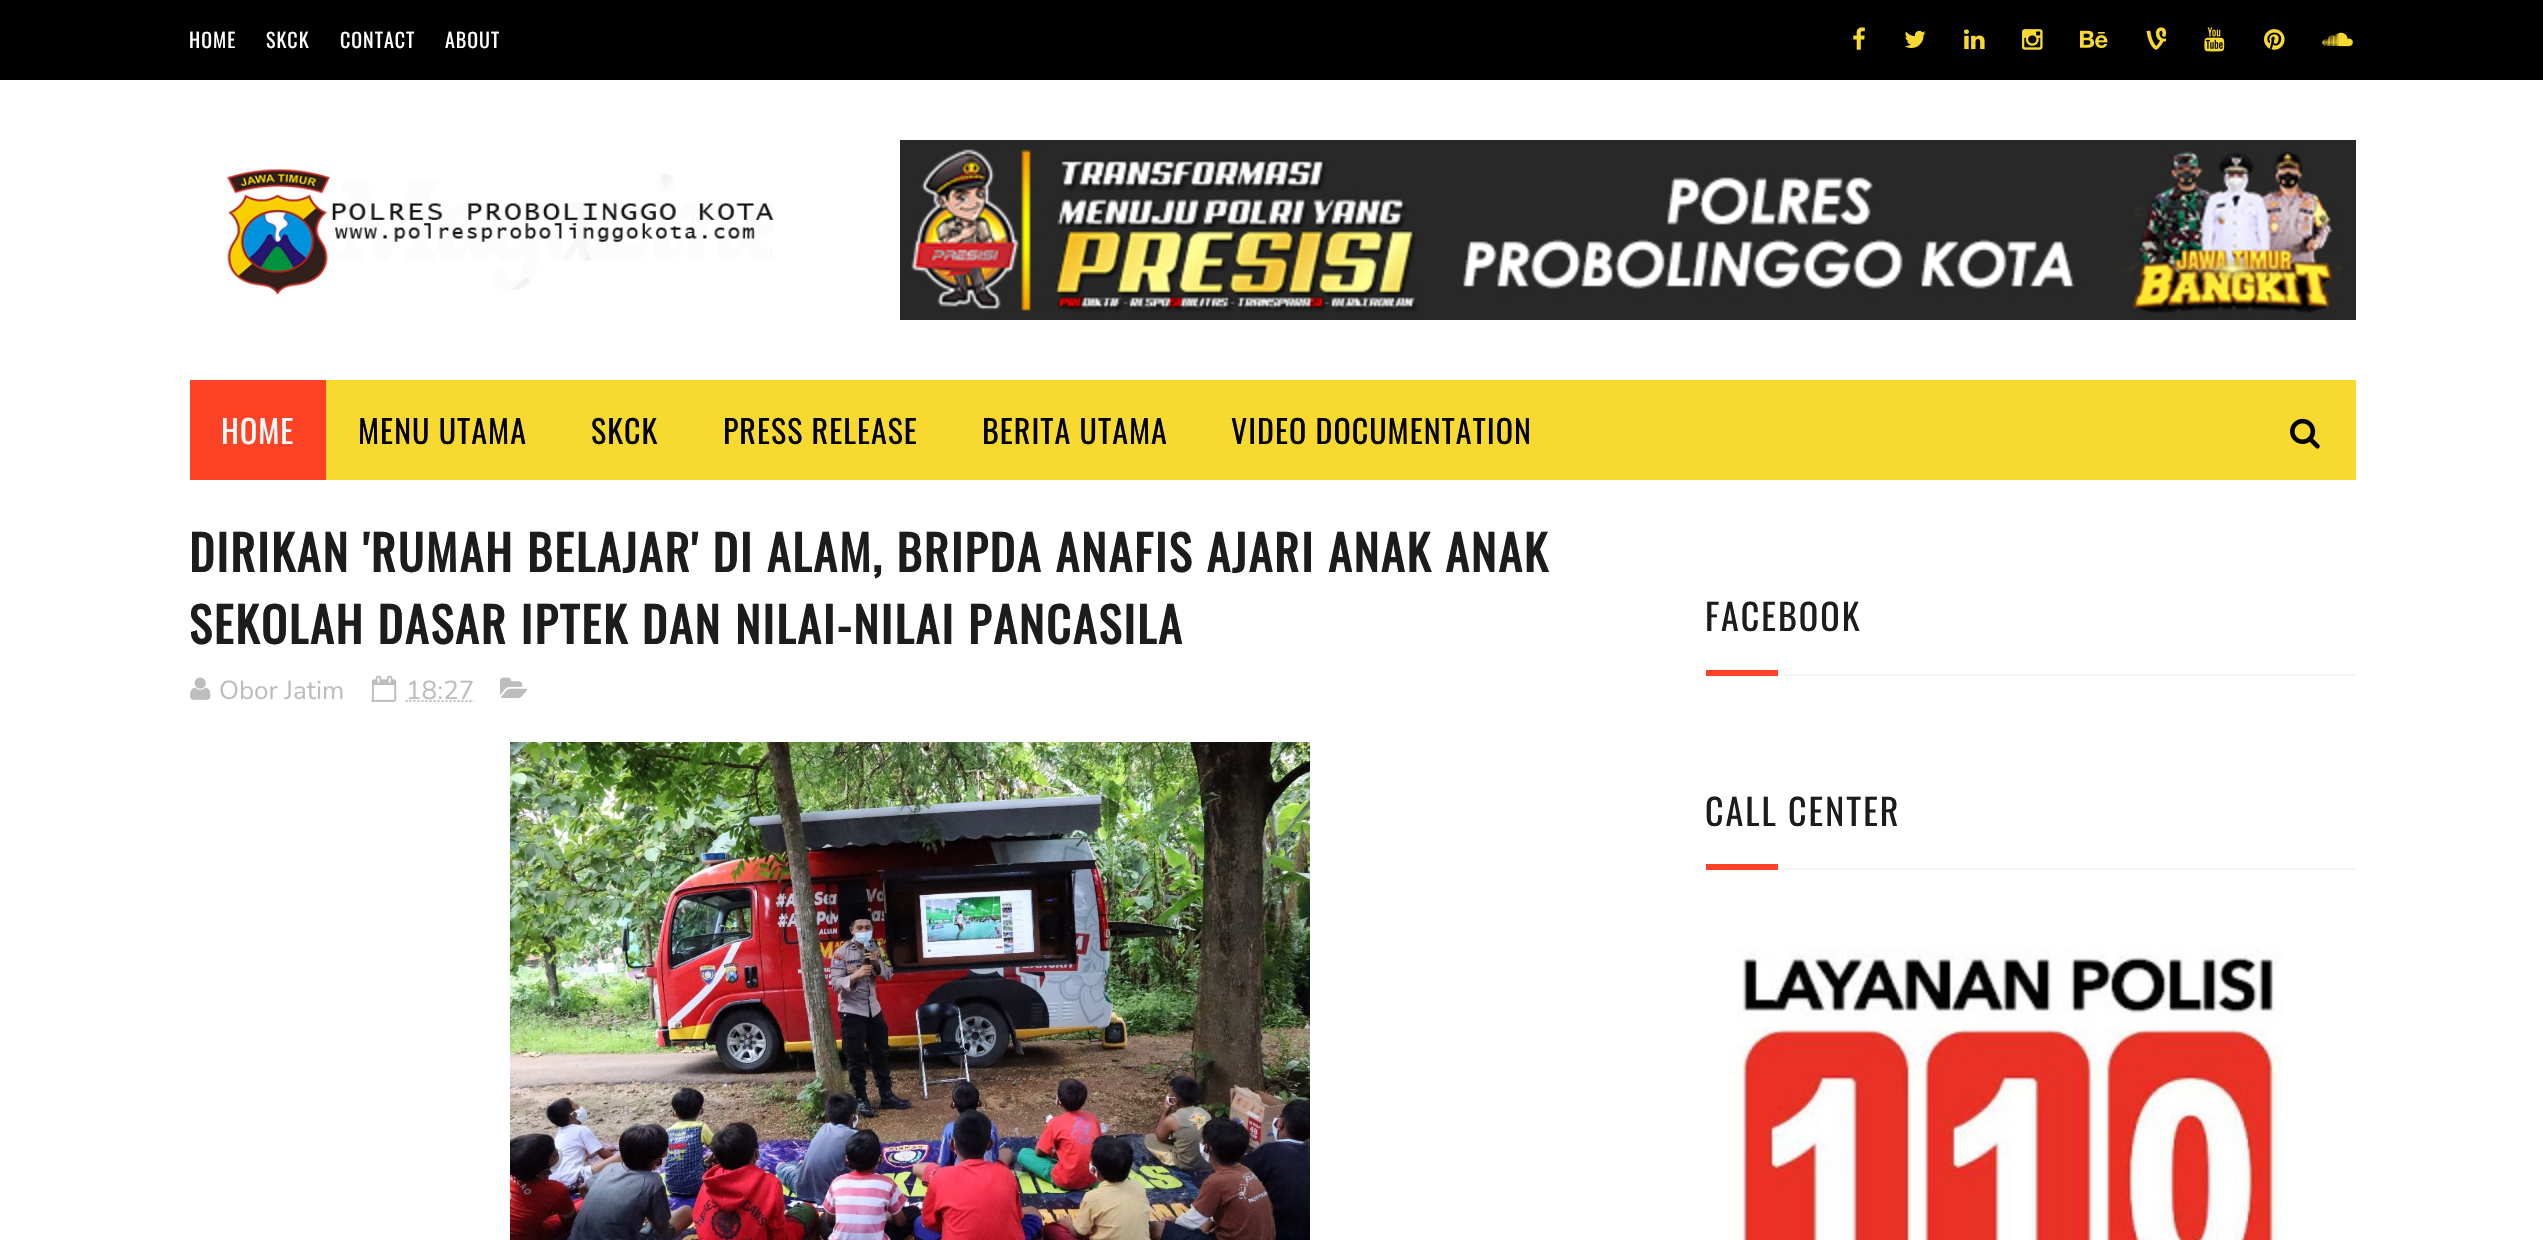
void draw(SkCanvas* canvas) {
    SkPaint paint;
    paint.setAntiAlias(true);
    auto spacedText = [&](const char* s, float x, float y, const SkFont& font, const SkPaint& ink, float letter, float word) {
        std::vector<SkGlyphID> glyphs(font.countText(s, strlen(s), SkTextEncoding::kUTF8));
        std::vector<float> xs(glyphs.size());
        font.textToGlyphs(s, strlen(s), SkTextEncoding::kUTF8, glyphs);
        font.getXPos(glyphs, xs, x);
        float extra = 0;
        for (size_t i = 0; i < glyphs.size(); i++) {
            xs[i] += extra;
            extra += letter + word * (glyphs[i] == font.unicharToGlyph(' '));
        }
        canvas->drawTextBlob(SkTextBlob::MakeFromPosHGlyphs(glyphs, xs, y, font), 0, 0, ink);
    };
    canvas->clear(0xFFFFFFFF);
    paint.setColor(0xFF000000);
    canvas->drawRect(SkRect::MakeXYWH(0, 0, 2543, 80), paint);
    SkFont font1(fontMgr->matchFamilyStyle("Oswald", SkFontStyle::Normal()), 20);
    font1.setSubpixel(true);
    paint.setColor(0xFFFFFFFF);
    spacedText("HOME", 189, 48, font1, paint, 1, 0);
    spacedText("SKCK", 266, 48, font1, paint, 1, 0);
    spacedText("CONTACT", 340, 48, font1, paint, 1, 0);
    spacedText("ABOUT", 445, 48, font1, paint, 1, 0);
    canvas->drawImageRect(SkImages::DeferredFromEncodedData(SkData::MakeFromFileName("img1.png")), SkRect::MakeXYWH(1853, 27, 12, 23), SkSamplingOptions());
    canvas->drawImageRect(SkImages::DeferredFromEncodedData(SkData::MakeFromFileName("img2.png")), SkRect::MakeXYWH(1904, 30, 22, 18), SkSamplingOptions());
    canvas->drawImageRect(SkImages::DeferredFromEncodedData(SkData::MakeFromFileName("img3.png")), SkRect::MakeXYWH(1964, 29, 21, 21), SkSamplingOptions());
    canvas->drawImageRect(SkImages::DeferredFromEncodedData(SkData::MakeFromFileName("img4.png")), SkRect::MakeXYWH(2022, 29, 21, 21), SkSamplingOptions());
    canvas->drawImageRect(SkImages::DeferredFromEncodedData(SkData::MakeFromFileName("img5.png")), SkRect::MakeXYWH(2080, 30, 28, 18), SkSamplingOptions());
    canvas->drawImageRect(SkImages::DeferredFromEncodedData(SkData::MakeFromFileName("img6.png")), SkRect::MakeXYWH(2146, 27, 21, 23), SkSamplingOptions());
    canvas->drawImageRect(SkImages::DeferredFromEncodedData(SkData::MakeFromFileName("img7.png")), SkRect::MakeXYWH(2204, 27, 21, 25), SkSamplingOptions());
    canvas->drawImageRect(SkImages::DeferredFromEncodedData(SkData::MakeFromFileName("img8.png")), SkRect::MakeXYWH(2264, 29, 21, 21), SkSamplingOptions());
    canvas->drawImageRect(SkImages::DeferredFromEncodedData(SkData::MakeFromFileName("img9.png")), SkRect::MakeXYWH(2322, 32, 31, 15), SkSamplingOptions());
    canvas->drawImageRect(SkImages::DeferredFromEncodedData(SkData::MakeFromFileName("img10.png")), SkRect::MakeXYWH(227, 169, 547, 126), SkSamplingOptions());
    canvas->drawImageRect(SkImages::DeferredFromEncodedData(SkData::MakeFromFileName("img11.png")), SkRect::MakeXYWH(900, 140, 1456, 180), SkSamplingOptions());
    paint.setColor(0xFFF8D92F);
    canvas->drawRect(SkRect::MakeXYWH(326, 380, 2030, 100), paint);
    paint.setColor(0xFFFD4326);
    canvas->drawRect(SkRect::MakeXYWH(190, 380, 136, 100), paint);
    SkFont font2(fontMgr->matchFamilyStyle("Oswald", SkFontStyle::Normal()), 32);
    font2.setSubpixel(true);
    paint.setColor(0xFFFFFFFF);
    spacedText("HOME", 221, 444, font2, paint, 1, 0);
    paint.setColor(0xFF000000);
    spacedText("MENU UTAMA", 358, 444, font2, paint, 1, 0);
    spacedText("SKCK", 591, 444, font2, paint, 1, 0);
    spacedText("PRESS RELEASE", 723, 444, font2, paint, 1, 0);
    spacedText("BERITA UTAMA", 982, 444, font2, paint, 1, 0);
    spacedText("VIDEO DOCUMENTATION", 1231, 444, font2, paint, 1, 0);
    canvas->drawImageRect(SkImages::DeferredFromEncodedData(SkData::MakeFromFileName("img12.png")), SkRect::MakeXYWH(2290, 418, 30, 31), SkSamplingOptions());
    SkFont font3(fontMgr->matchFamilyStyle("Oswald", SkFontStyle::Bold()), 48);
    font3.setSubpixel(true);
    paint.setColor(0xFF1C1C1C);
    spacedText("DIRIKAN 'RUMAH BELAJAR' DI ALAM, BRIPDA ANAFIS AJARI ANAK ANAK", 189, 572, font3, paint, 2, 0);
    spacedText("SEKOLAH DASAR IPTEK DAN NILAI-NILAI PANCASILA", 189, 644, font3, paint, 2, 0);
    canvas->drawImageRect(SkImages::DeferredFromEncodedData(SkData::MakeFromFileName("img13.png")), SkRect::MakeXYWH(190, 677, 21, 23), SkSamplingOptions());
    SkFont font4(fontMgr->matchFamilyStyle("Nunito", SkFontStyle::Normal()), 26);
    font4.setSubpixel(true);
    paint.setColor(0xFFBDBDBD);
    canvas->drawString("Obor Jatim", 219, 699, font4, paint);
    paint.setStyle(SkPaint::kStroke_Style);
    paint.setStrokeWidth(2);
    paint.setPathEffect(SkDashPathEffect::Make({{2, 2}}, 0));
    canvas->drawPath(SkPathBuilder().moveTo(371.5f, 701).lineTo(395.5f, 701).detach(), paint);
    paint.setPathEffect(nullptr);
    canvas->drawImageRect(SkImages::DeferredFromEncodedData(SkData::MakeFromFileName("img14.png")), SkRect::MakeXYWH(372, 675, 25, 27), SkSamplingOptions());
    paint.setStyle(SkPaint::kFill_Style);
    canvas->drawString("18:27", 406, 699, font4, paint);
    paint.setStyle(SkPaint::kStroke_Style);
    paint.setPathEffect(SkDashPathEffect::Make({{2, 2}}, 0));
    canvas->drawPath(SkPathBuilder().moveTo(405.5f, 701).lineTo(474, 701).detach(), paint);
    paint.setPathEffect(nullptr);
    canvas->drawImageRect(SkImages::DeferredFromEncodedData(SkData::MakeFromFileName("img15.png")), SkRect::MakeXYWH(500, 677, 28, 21), SkSamplingOptions());
    canvas->drawImageRect(SkImages::DeferredFromEncodedData(SkData::MakeFromFileName("img16.png")), SkRect::MakeXYWH(510, 742, 800, 498), SkSamplingOptions());
    paint.setStyle(SkPaint::kFill_Style);
    paint.setColor(0xFFF5F5F5);
    canvas->drawRect(SkRect::MakeXYWH(1778, 674, 578, 2), paint);
    SkFont font5(fontMgr->matchFamilyStyle("Oswald", SkFontStyle::Normal()), 36);
    font5.setSubpixel(true);
    paint.setColor(0xFF1C1C1C);
    spacedText("FACEBOOK", 1705, 631, font5, paint, 2, 0);
    paint.setColor(0xFFFD4326);
    canvas->drawRect(SkRect::MakeXYWH(1706, 670, 72, 6), paint);
    paint.setColor(0xFFF5F5F5);
    canvas->drawRect(SkRect::MakeXYWH(1778, 868, 578, 2), paint);
    paint.setColor(0xFF1C1C1C);
    spacedText("CALL CENTER", 1705, 826, font5, paint, 2, 0);
    paint.setColor(0xFFFD4326);
    canvas->drawRect(SkRect::MakeXYWH(1706, 864, 72, 6), paint);
    canvas->drawImageRect(SkImages::DeferredFromEncodedData(SkData::MakeFromFileName("img17.png")), SkRect::MakeXYWH(1727, 948, 556, 292), SkSamplingOptions());
}
